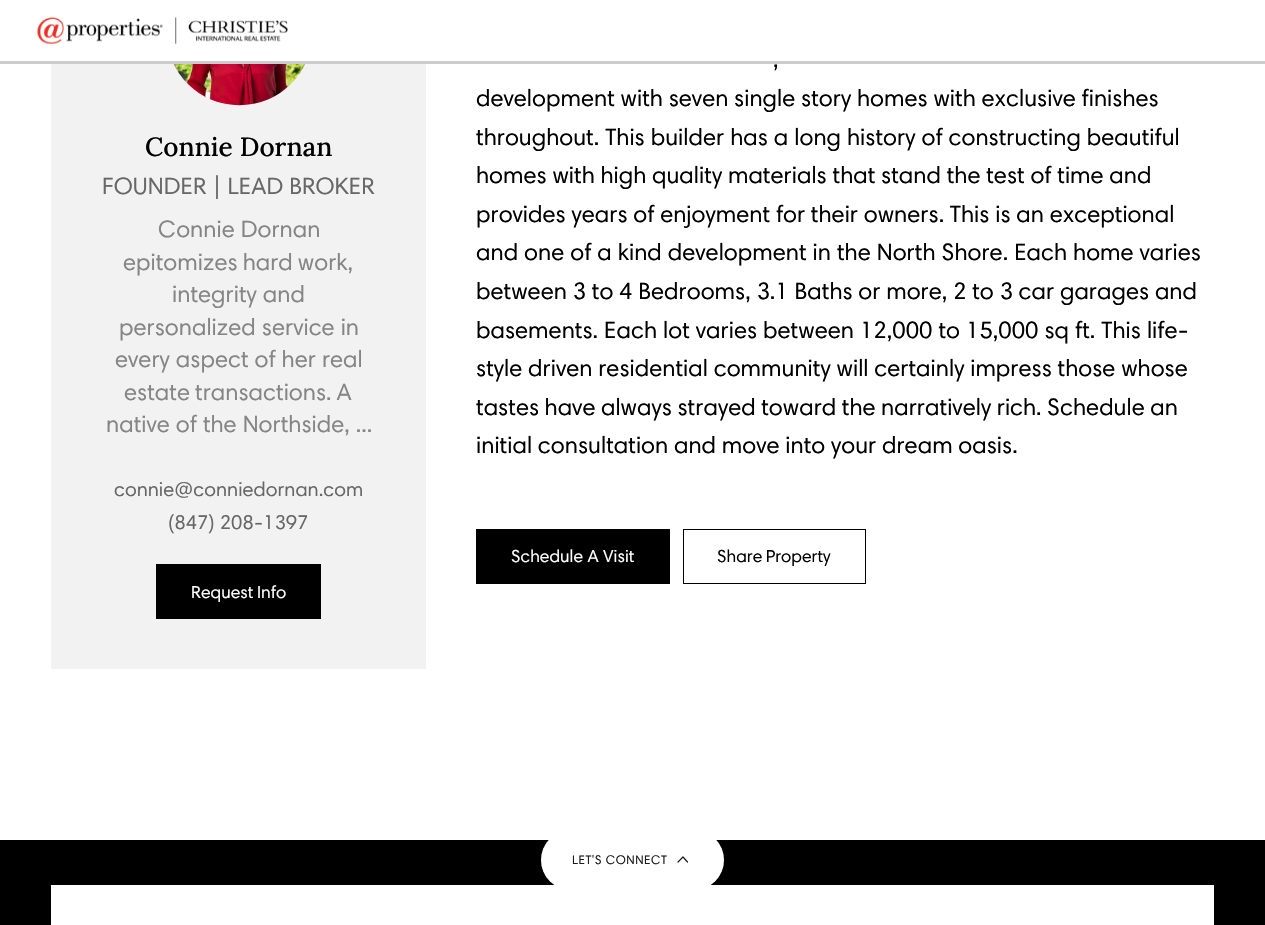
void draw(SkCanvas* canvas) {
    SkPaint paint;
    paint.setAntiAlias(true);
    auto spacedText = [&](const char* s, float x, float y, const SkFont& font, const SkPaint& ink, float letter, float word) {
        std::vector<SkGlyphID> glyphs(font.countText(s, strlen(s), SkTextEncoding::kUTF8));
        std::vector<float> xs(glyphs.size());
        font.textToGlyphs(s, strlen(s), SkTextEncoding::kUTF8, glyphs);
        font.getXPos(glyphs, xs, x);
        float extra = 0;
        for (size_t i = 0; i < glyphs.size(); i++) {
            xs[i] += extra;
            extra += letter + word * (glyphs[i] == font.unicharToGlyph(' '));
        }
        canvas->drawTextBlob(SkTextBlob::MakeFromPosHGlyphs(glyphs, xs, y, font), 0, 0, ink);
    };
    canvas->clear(0xFF000000);
    paint.setColor(0xFFFFFFFF);
    canvas->drawRect(SkRect::MakeXYWH(0, 0, 1265, 61), paint);
    paint.setColor(0xFFCCCCCC);
    canvas->drawRect(SkRect::MakeXYWH(0, 61, 1265, 3), paint);
    canvas->drawImageRect(SkImages::DeferredFromEncodedData(SkData::MakeFromFileName("img1.png")), SkRect::MakeXYWH(37, 17, 251, 27), SkSamplingOptions());
    paint.setColor(0xFFFFFFFF);
    canvas->drawRect(SkRect::MakeXYWH(0, 64, 1265, 776), paint);
    paint.setColor(0xFFF2F2F2);
    canvas->drawRect(SkRect::MakeXYWH(51, 64, 375, 605), paint);
    canvas->drawImageRect(SkImages::DeferredFromEncodedData(SkData::MakeFromFileName("img2.png")), SkRect::MakeXYWH(173, 64, 132, 42), SkSamplingOptions());
    SkFont font1(fontMgr->matchFamilyStyle("Lora", SkFontStyle(500, SkFontStyle::kNormal_Width, SkFontStyle::kUpright_Slant)), 26.25f);
    font1.setSubpixel(true);
    paint.setColor(0xFF000000);
    canvas->drawString("Connie Dornan", 145, 156, font1, paint);
    SkFont font2(fontMgr->matchFamilyStyle("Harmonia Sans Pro", SkFontStyle::Normal()), 23.75f);
    font2.setSubpixel(true);
    paint.setColor(0xFF676767);
    spacedText("FOUNDER | LEAD BROKER", 102, 194, font2, paint, 0.05f, 0);
    paint.setColor(0xFF858585);
    spacedText("Connie Dornan", 158, 237, font2, paint, 0.05f, 0);
    spacedText("epitomizes hard work,", 123, 270, font2, paint, 0.05f, -1);
    spacedText("integrity and", 172, 302, font2, paint, 0.05f, 0);
    spacedText("personalized service in", 119, 335, font2, paint, 0.05f, 0);
    spacedText("every aspect of her real", 115, 367, font2, paint, 0.05f, 0);
    spacedText("estate transactions. A", 124, 400, font2, paint, 0.05f, -1);
    spacedText("native of the Northside, ...", 106, 432, font2, paint, 0.05f, 0);
    SkFont font3(fontMgr->matchFamilyStyle("Harmonia Sans Pro", SkFontStyle::Normal()), 20);
    font3.setSubpixel(true);
    paint.setColor(0xFF676767);
    spacedText("connie@conniedornan.com", 114, 496, font3, paint, 0.05f, 0);
    spacedText("(847) 208-1397", 168, 529, font3, paint, 0.05f, 0);
    paint.setColor(0xFF000000);
    canvas->drawRect(SkRect::MakeXYWH(156, 564, 165, 55), paint);
    SkFont font4(fontMgr->matchFamilyStyle("Harmonia Sans Pro", SkFontStyle::Normal()), 17.5f);
    font4.setSubpixel(true);
    paint.setColor(0xFFFFFFFF);
    spacedText("Request Info", 191, 598, font4, paint, 0.05f, -1);
    paint.setColor(0xFF000000);
    spacedText(",", 773, 67, font2, paint, 0.05f, -0.25f);
    spacedText("development with seven single story homes with exclusive finishes", 476, 106, font2, paint, 0.05f, -0.25f);
    spacedText("throughout. This builder has a long history of constructing beautiful", 476, 145, font2, paint, 0.05f, 0);
    spacedText("homes with high quality materials that stand the test of time and", 476, 183, font2, paint, 0.05f, -0.25f);
    spacedText("provides years of enjoyment for their owners. This is an exceptional", 476, 222, font2, paint, 0.05f, -0.25f);
    spacedText("and one of a kind development in the North Shore. Each home varies", 476, 260, font2, paint, 0.05f, 0);
    spacedText("between 3 to 4 Bedrooms, 3.1 Baths or more, 2 to 3 car garages and", 476, 299, font2, paint, 0.05f, -0.25f);
    spacedText("basements. Each lot varies between 12,000 to 15,000 sq ft. This life-", 476, 338, font2, paint, 0.05f, 0);
    spacedText("style driven residential community will certainly impress those whose", 476, 376, font2, paint, 0.05f, -0.25f);
    spacedText("tastes have always strayed toward the narratively rich. Schedule an", 476, 415, font2, paint, 0.05f, -0.5f);
    spacedText("initial consultation and move into your dream oasis.", 476, 453, font2, paint, 0.05f, -0.25f);
    canvas->drawRect(SkRect::MakeXYWH(476, 529, 194, 55), paint);
    paint.setColor(0xFFFFFFFF);
    spacedText("Schedule A Visit", 511, 562, font4, paint, 0.05f, 0);
    paint.setStyle(SkPaint::kStroke_Style);
    paint.setStrokeWidth(1);
    paint.setColor(0xFF000000);
    canvas->drawRect(SkRect::MakeXYWH(683.5f, 529.5f, 182, 54), paint);
    paint.setStyle(SkPaint::kFill_Style);
    spacedText("Share Property", 717, 562, font4, paint, 0, -1);
    paint.setColor(0xFFFFFFFF);
    canvas->drawRect(SkRect::MakeXYWH(51, 885, 1163, 40), paint);
    canvas->drawRoundRect(SkRect::MakeXYWH(541, 830, 183, 60), 30, 30, paint);
    paint.setStyle(SkPaint::kStroke_Style);
    paint.setColor(0x33FFFFFF);
    canvas->drawRoundRect(SkRect::MakeXYWH(541.5f, 830.5f, 182, 59), 29.5f, 29.5f, paint);
    SkFont font5(fontMgr->matchFamilyStyle("Harmonia Sans Pro", SkFontStyle::Normal()), 12.5f);
    font5.setSubpixel(true);
    paint.setStyle(SkPaint::kFill_Style);
    paint.setColor(0xFF1A1A1A);
    spacedText("LET'S CONNECT", 572, 864, font5, paint, 0.5f, 0);
    paint.setStyle(SkPaint::kStroke_Style);
    paint.setStrokeWidth(1.2f);
    paint.setStrokeCap(SkPaint::kRound_Cap);
    paint.setStrokeJoin(SkPaint::kRound_Join);
    canvas->drawPath(SkPathBuilder().moveTo(687.5f, 862).lineTo(683, 857).lineTo(678, 862).detach(), paint);
}
